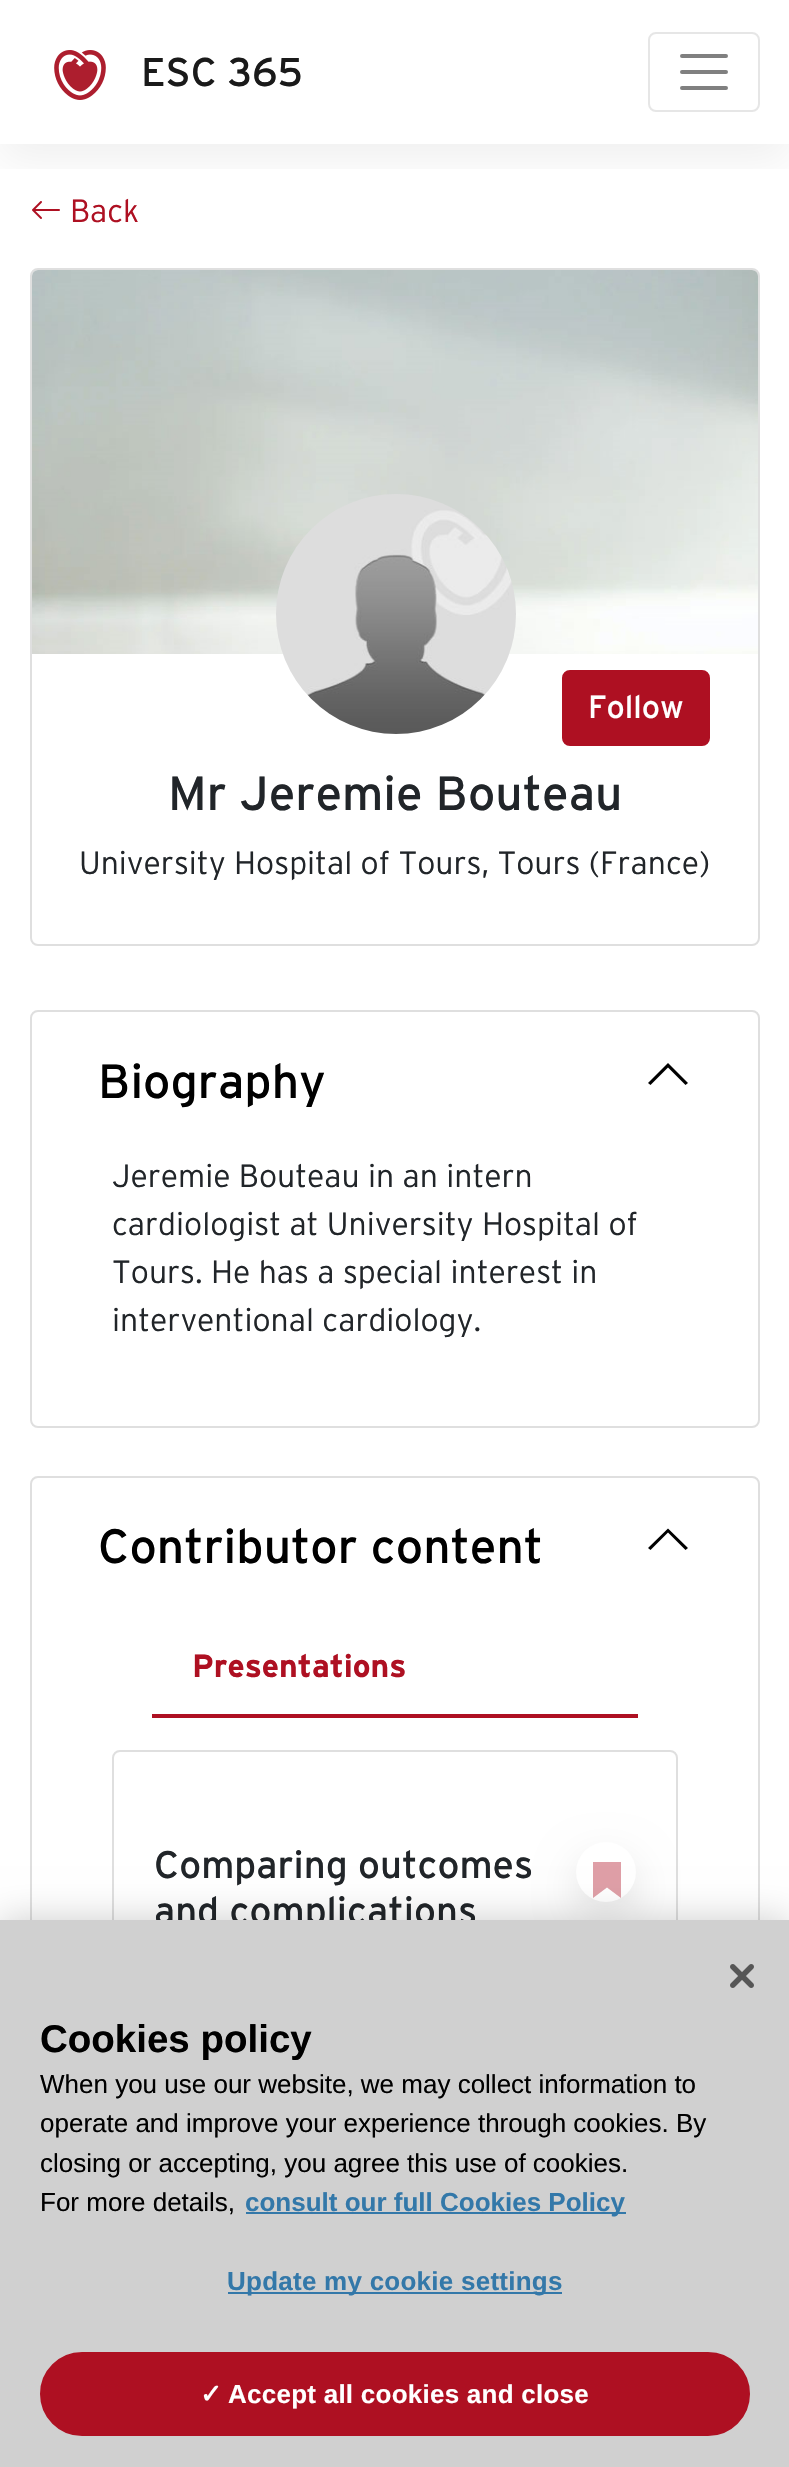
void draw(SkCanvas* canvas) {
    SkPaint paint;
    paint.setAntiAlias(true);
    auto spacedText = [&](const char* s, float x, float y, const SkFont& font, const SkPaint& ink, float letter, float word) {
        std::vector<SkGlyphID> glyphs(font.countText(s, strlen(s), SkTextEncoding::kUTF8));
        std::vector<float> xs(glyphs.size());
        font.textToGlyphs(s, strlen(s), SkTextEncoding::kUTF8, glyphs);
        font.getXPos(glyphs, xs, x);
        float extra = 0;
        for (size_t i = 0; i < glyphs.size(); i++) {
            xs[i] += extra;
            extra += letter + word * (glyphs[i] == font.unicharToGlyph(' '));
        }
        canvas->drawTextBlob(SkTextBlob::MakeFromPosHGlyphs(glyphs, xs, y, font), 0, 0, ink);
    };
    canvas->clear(0xFFFFFFFF);
    canvas->drawImageRect(SkImages::DeferredFromEncodedData(SkData::MakeFromFileName("img2.png")), SkRect::MakeXYWH(32, 201, 28, 18), SkSamplingOptions());
    canvas->save();
    canvas->clipRect(SkRect::MakeXYWH(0, 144, 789, 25));
    paint.setColor(0x0F000000);
    paint.setMaskFilter(SkMaskFilter::MakeBlur(kNormal_SkBlurStyle, 20));
    canvas->drawRect(SkRect::MakeXYWH(0, 16, 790, 144), paint);
    paint.setMaskFilter(nullptr);
    canvas->restore();
    canvas->drawImageRect(SkImages::DeferredFromEncodedData(SkData::MakeFromFileName("img1.png")), SkRect::MakeXYWH(54, 50, 52, 50), SkSamplingOptions());
    SkFont font1(fontMgr->matchFamilyStyle("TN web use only", SkFontStyle::Normal()), 40);
    font1.setSubpixel(true);
    paint.setColor(0xFF1A1A1A);
    canvas->drawString("ESC 365", 141, 86, font1, paint);
    paint.setStyle(SkPaint::kStroke_Style);
    paint.setStrokeWidth(2);
    paint.setColor(0xFFE6E6E6);
    canvas->drawRoundRect(SkRect::MakeXYWH(649, 33, 110, 78), 7, 7, paint);
    paint.setStrokeWidth(4);
    paint.setStrokeCap(SkPaint::kRound_Cap);
    paint.setColor(0xFF808080);
    canvas->drawPath(SkPathBuilder().moveTo(682, 56).lineTo(726, 56).moveTo(682, 72).lineTo(726, 72).moveTo(682, 88).lineTo(726, 88).detach(), paint);
    SkFont font2(fontMgr->matchFamilyStyle("TN web use only", SkFontStyle(300, SkFontStyle::kNormal_Width, SkFontStyle::kUpright_Slant)), 32);
    font2.setSubpixel(true);
    paint.setStyle(SkPaint::kFill_Style);
    paint.setColor(0xFFAE1022);
    canvas->drawString("Back", 70, 222, font2, paint);
    paint.setStyle(SkPaint::kStroke_Style);
    paint.setStrokeWidth(2);
    paint.setStrokeCap(SkPaint::kButt_Cap);
    paint.setColor(0xFFDFDFDF);
    canvas->drawRoundRect(SkRect::MakeXYWH(31, 269, 728, 676), 7, 7, paint);
    canvas->drawImageRect(SkImages::DeferredFromEncodedData(SkData::MakeFromFileName("img3.png")), SkRect::MakeXYWH(32, 270, 726, 384), SkSamplingOptions());
    canvas->drawImageRect(SkImages::DeferredFromEncodedData(SkData::MakeFromFileName("img4.png")), SkRect::MakeXYWH(276, 494, 240, 240), SkSamplingOptions());
    paint.setStyle(SkPaint::kFill_Style);
    paint.setColor(0xFFAE1022);
    canvas->drawRoundRect(SkRect::MakeXYWH(563, 671, 146, 74), 7, 7, paint);
    paint.setStyle(SkPaint::kStroke_Style);
    canvas->drawRoundRect(SkRect::MakeXYWH(563, 671, 146, 74), 7, 7, paint);
    SkFont font3(fontMgr->matchFamilyStyle("TN web use only", SkFontStyle::Normal()), 32);
    font3.setSubpixel(true);
    paint.setStyle(SkPaint::kFill_Style);
    paint.setColor(0xFFFFFFFF);
    canvas->drawString("Follow", 588, 718, font3, paint);
    SkFont font4(fontMgr->matchFamilyStyle("TN web use only", SkFontStyle::Normal()), 48);
    font4.setSubpixel(true);
    paint.setColor(0xFF212529);
    canvas->drawString("Mr Jeremie Bouteau", 168, 810, font4, paint);
    canvas->drawString("University Hospital of Tours, Tours (France)", 79, 874, font2, paint);
    paint.setStyle(SkPaint::kStroke_Style);
    paint.setColor(0xFFDFDFDF);
    canvas->drawRoundRect(SkRect::MakeXYWH(31, 1011, 728, 416), 7, 7, paint);
    paint.setStyle(SkPaint::kFill_Style);
    paint.setColor(0xFF000000);
    canvas->drawString("Biography", 98, 1098, font4, paint);
    canvas->drawPath(SkPathBuilder().moveTo(685.5f, 1085).lineTo(688, 1083).lineTo(668, 1063).lineTo(648, 1083).lineTo(650.5f, 1085).lineTo(668, 1067.5f).close().detach(), paint);
    paint.setColor(0xFF212529);
    canvas->drawString("Jeremie Bouteau in an intern", 112, 1187, font2, paint);
    canvas->drawString("cardiologist at University Hospital of", 112, 1235, font2, paint);
    canvas->drawString("Tours. He has a special interest in", 112, 1283, font2, paint);
    canvas->drawString("interventional cardiology.", 112, 1331, font2, paint);
    paint.setStyle(SkPaint::kStroke_Style);
    paint.setColor(0xFFDFDFDF);
    canvas->drawRoundRect(SkRect::MakeXYWH(31, 1477, 728, 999), 7, 7, paint);
    paint.setStyle(SkPaint::kFill_Style);
    paint.setColor(0xFF000000);
    canvas->drawString("Contributor content", 98, 1563, font4, paint);
    canvas->drawPath(SkPathBuilder().moveTo(685.5f, 1550).lineTo(688, 1548).lineTo(668, 1528.5f).lineTo(648, 1548).lineTo(650.5f, 1550).lineTo(668, 1532.5f).close().detach(), paint);
    paint.setColor(0xFFAE1022);
    canvas->drawRect(SkRect::MakeXYWH(152, 1714, 486, 4), paint);
    SkFont font5(fontMgr->matchFamilyStyle("TN web use only", SkFontStyle::Bold()), 32);
    font5.setSubpixel(true);
    canvas->drawString("Presentations", 192, 1677, font5, paint);
    paint.setStyle(SkPaint::kStroke_Style);
    paint.setColor(0xFFDFDFDF);
    canvas->drawRoundRect(SkRect::MakeXYWH(113, 1751, 564, 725), 7, 7, paint);
    SkFont font6(fontMgr->matchFamilyStyle("TN web use only", SkFontStyle::Normal()), 38.5f);
    font6.setSubpixel(true);
    paint.setStyle(SkPaint::kFill_Style);
    paint.setColor(0xFF212529);
    canvas->drawString("Comparing outcomes", 154, 1878, font6, paint);
    canvas->drawString("and complications", 154, 1924, font6, paint);
    paint.setColor(0x1A000000);
    paint.setMaskFilter(SkMaskFilter::MakeBlur(kNormal_SkBlurStyle, 20));
    canvas->drawRoundRect(SkRect::MakeXYWH(576, 1858, 60, 60), 30, 30, paint);
    paint.setMaskFilter(nullptr);
    paint.setColor(0xFFFFFFFF);
    canvas->drawCircle(606, 1872, 30, paint);
    paint.setColor(0xFFDF9FA7);
    canvas->drawPath(SkPathBuilder().moveTo(593, 1862).lineTo(593, 1898).lineTo(607, 1887.5f).lineTo(621, 1898).lineTo(621, 1862).close().detach(), paint);
    paint.setColor(0x33000000);
    paint.setMaskFilter(SkMaskFilter::MakeBlur(kNormal_SkBlurStyle, 18));
    canvas->drawRect(SkRect::MakeXYWH(0, 1920, 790, 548), paint);
    paint.setMaskFilter(nullptr);
    paint.setColor(0xFFD0D0D0);
    canvas->drawRect(SkRect::MakeXYWH(0, 1920, 789, 547), paint);
    canvas->drawImageRect(SkImages::DeferredFromEncodedData(SkData::MakeFromFileName("img5.png")), SkRect::MakeXYWH(730, 1964, 24, 24), SkSamplingOptions());
    SkFont font7(fontMgr->matchFamilyStyle("Liberation Sans", SkFontStyle::Bold()), 38.5f);
    font7.setSubpixel(true);
    paint.setColor(0xFF000000);
    canvas->drawString("Cookies policy", 40, 2052, font7, paint);
    SkFont font8(fontMgr->matchFamilyStyle("Liberation Sans", SkFontStyle::Normal()), 26);
    font8.setSubpixel(true);
    canvas->drawString("When you use our website, we may collect information to", 40, 2093, font8, paint);
    canvas->drawString("operate and improve your experience through cookies. By", 40, 2132, font8, paint);
    canvas->drawString("closing or accepting, you agree this use of cookies.", 40, 2172, font8, paint);
    canvas->drawString("For more details,", 40, 2211, font8, paint);
    paint.setColor(0xFF3378A9);
    canvas->drawRect(SkRect::MakeXYWH(246, 2212, 380, 2), paint);
    SkFont font9(fontMgr->matchFamilyStyle("Liberation Sans", SkFontStyle::Bold()), 26);
    font9.setSubpixel(true);
    canvas->drawString("consult our full Cookies Policy", 245, 2211, font9, paint);
    canvas->drawRect(SkRect::MakeXYWH(228, 2292, 334, 2), paint);
    spacedText("Update my cookie settings", 227, 2290, font9, paint, 0.25f, 0);
    paint.setColor(0xFFAE1022);
    canvas->drawRoundRect(SkRect::MakeXYWH(41, 2353, 708, 82), 41, 41, paint);
    paint.setStyle(SkPaint::kStroke_Style);
    canvas->drawRoundRect(SkRect::MakeXYWH(41, 2353, 708, 82), 41, 41, paint);
    SkFont font10(fontMgr->matchFamilyStyle("DejaVu Sans", SkFontStyle::Bold()), 26);
    font10.setSubpixel(true);
    paint.setStyle(SkPaint::kFill_Style);
    paint.setColor(0xFFFFFFFF);
    spacedText("✓", 200, 2403, font10, paint, 0.25f, 0);
    spacedText("Accept all cookies and close", 228, 2403, font9, paint, 0.25f, 0);
}
